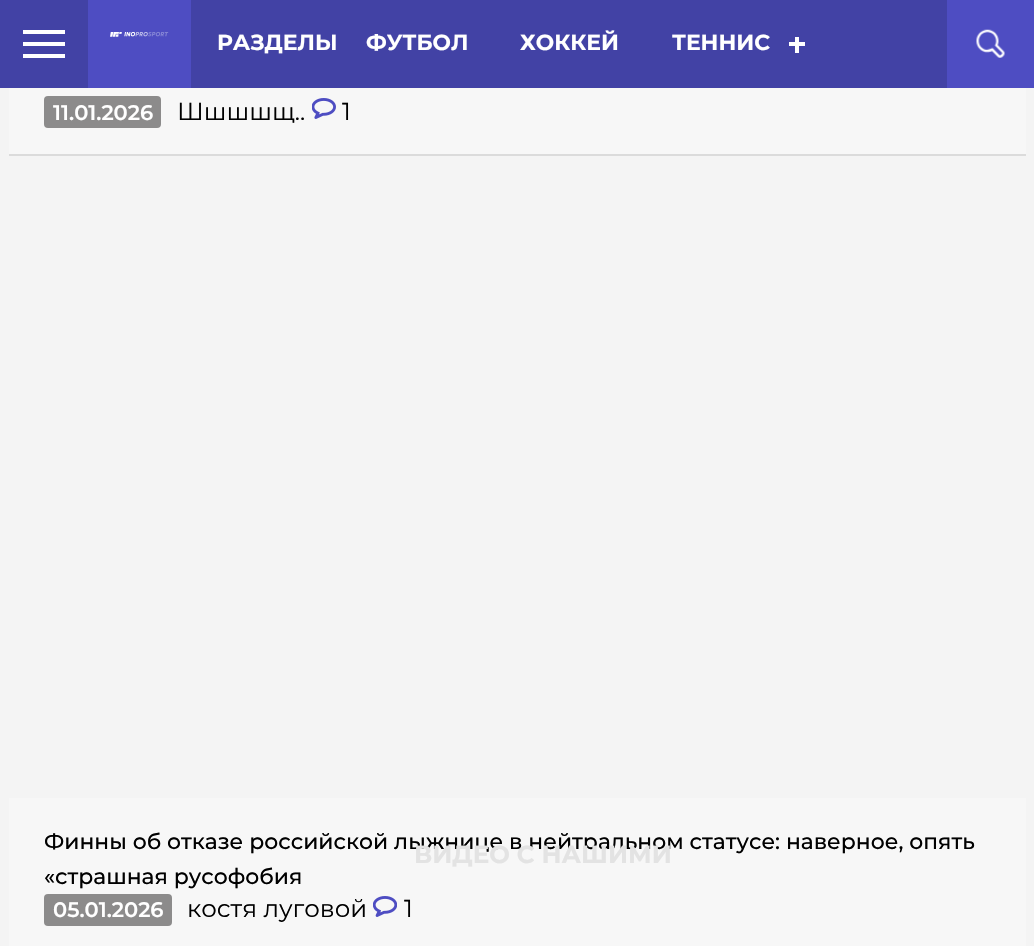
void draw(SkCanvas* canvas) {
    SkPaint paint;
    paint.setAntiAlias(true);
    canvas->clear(0xFFF4F4F4);
    paint.setColor(0xFF4E4DC2);
    canvas->drawRect(SkRect::MakeXYWH(88, 0, 946, 88), paint);
    paint.setColor(0xFF4242A5);
    canvas->drawRect(SkRect::MakeXYWH(0, 0, 88, 88), paint);
    paint.setColor(0xFFFFFFFF);
    canvas->drawRect(SkRect::MakeXYWH(23, 42, 42, 4), paint);
    canvas->drawRect(SkRect::MakeXYWH(23, 30, 42, 4), paint);
    canvas->drawRect(SkRect::MakeXYWH(23, 54, 42, 4), paint);
    canvas->drawImageRect(SkImages::DeferredFromEncodedData(SkData::MakeFromFileName("img1.png")), SkRect::MakeXYWH(110, 32, 59, 5), SkSamplingOptions());
    paint.setColor(0xFF4242A5);
    canvas->drawRect(SkRect::MakeXYWH(191, 0, 756, 88), paint);
    SkFont font1(fontMgr->matchFamilyStyle("Montserrat", SkFontStyle::Bold()), 21.85f);
    font1.setSubpixel(true);
    paint.setColor(0xFFFFFFFF);
    canvas->drawString("РАЗДЕЛЫ", 217, 50, font1, paint);
    canvas->drawString("ФУТБОЛ", 366, 50, font1, paint);
    canvas->drawString("ХОККЕЙ", 520, 50, font1, paint);
    canvas->drawString("ТЕННИС", 672, 50, font1, paint);
    canvas->drawRect(SkRect::MakeXYWH(789, 42, 16, 4), paint);
    canvas->drawRect(SkRect::MakeXYWH(795, 37, 4, 16), paint);
    paint.setColor(0xFFF7F7F7);
    canvas->drawRect(SkRect::MakeXYWH(9, 798, 1017, 148), paint);
    SkFont font2(fontMgr->matchFamilyStyle("Montserrat", SkFontStyle(500, SkFontStyle::kNormal_Width, SkFontStyle::kUpright_Slant)), 21.85f);
    font2.setSubpixel(true);
    paint.setColor(0xFF000000);
    canvas->drawString("Финны об отказе российской лыжнице в нейтральном статусе: наверное, опять", 44, 849, font2, paint);
    SkFont font3(fontMgr->matchFamilyStyle("Montserrat", SkFontStyle::Bold()), 24.5f);
    font3.setSubpixel(true);
    paint.setColor(0xFFE3E3E3);
    canvas->drawString("ВИДЕО С НАШИМИ", 414, 863, font3, paint);
    canvas->drawImageRect(SkImages::DeferredFromEncodedData(SkData::MakeFromFileName("img2.png")), SkRect::MakeXYWH(976, 29, 29, 29), SkSamplingOptions());
    paint.setColor(0xFFF7F7F7);
    canvas->drawRect(SkRect::MakeXYWH(9, 88, 1017, 66), paint);
    paint.setColor(0xFFDBDBDB);
    canvas->drawRect(SkRect::MakeXYWH(9, 154, 1017, 2), paint);
    paint.setColor(0xFF8C8B8B);
    canvas->drawRoundRect(SkRect::MakeXYWH(44, 96, 117, 32), 4, 4, paint);
    SkFont font4(fontMgr->matchFamilyStyle("Montserrat", SkFontStyle(600, SkFontStyle::kNormal_Width, SkFontStyle::kUpright_Slant)), 21);
    font4.setSubpixel(true);
    paint.setColor(0xFFFFFFFF);
    canvas->drawString("11.01.2026", 53, 120, font4, paint);
    SkFont font5(fontMgr->matchFamilyStyle("Montserrat", SkFontStyle::Normal()), 24.5f);
    font5.setSubpixel(true);
    paint.setColor(0xFF000000);
    canvas->drawString("Шшшшщ..", 177, 120, font5, paint);
    canvas->drawImageRect(SkImages::DeferredFromEncodedData(SkData::MakeFromFileName("img3.png")), SkRect::MakeXYWH(312, 98, 24, 21), SkSamplingOptions());
    canvas->drawString("1", 342, 120, font5, paint);
    canvas->drawString("«страшная русофобия", 44, 884, font2, paint);
    paint.setColor(0xFF8C8B8B);
    canvas->drawRoundRect(SkRect::MakeXYWH(44, 894, 128, 32), 4, 4, paint);
    paint.setColor(0xFFFFFFFF);
    canvas->drawString("05.01.2026", 53, 917, font4, paint);
    paint.setColor(0xFF000000);
    canvas->drawString("костя луговой", 187, 917, font5, paint);
    canvas->drawImageRect(SkImages::DeferredFromEncodedData(SkData::MakeFromFileName("img4.png")), SkRect::MakeXYWH(373, 896, 24, 21), SkSamplingOptions());
    canvas->drawString("1", 404, 917, font5, paint);
}
